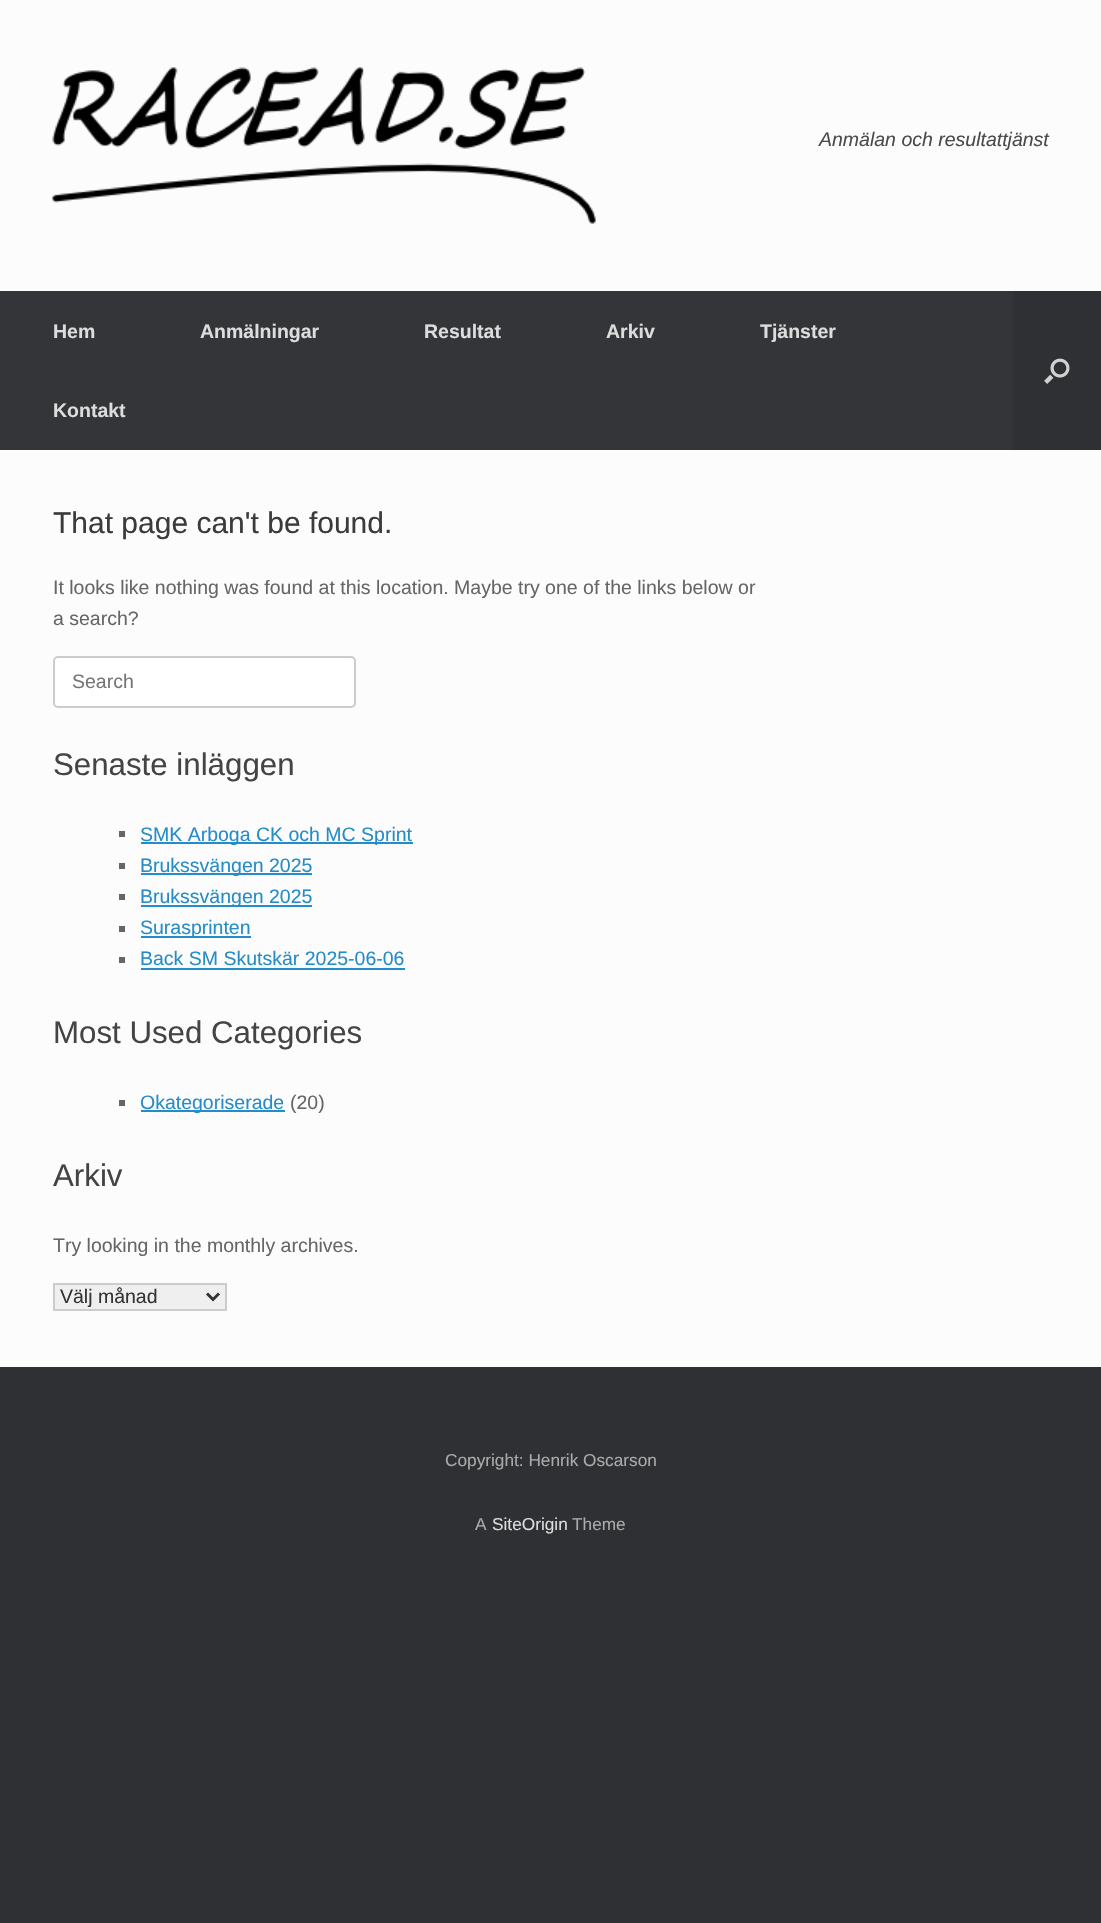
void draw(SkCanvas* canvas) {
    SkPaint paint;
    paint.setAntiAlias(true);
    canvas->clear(0xFF2F3033);
    paint.setColor(0xFFFCFCFC);
    canvas->drawRect(SkRect::MakeXYWH(0, 0, 1101, 291), paint);
    canvas->drawImageRect(SkImages::DeferredFromEncodedData(SkData::MakeFromFileName("img1.png")), SkRect::MakeXYWH(52, 67, 544, 157), SkSamplingOptions());
    SkFont font1(fontMgr->matchFamilyStyle("Liberation Sans", SkFontStyle::Italic()), 19.5f);
    font1.setSubpixel(true);
    paint.setColor(0xFF4B4B4B);
    canvas->drawString("Anmälan och resultattjänst", 819, 146, font1, paint);
    paint.setColor(0xFF343538);
    canvas->drawRect(SkRect::MakeXYWH(0, 291, 1013, 159), paint);
    SkFont font2(fontMgr->matchFamilyStyle("Liberation Sans", SkFontStyle::Bold()), 19.5f);
    font2.setSubpixel(true);
    paint.setColor(0xFFDDDDDD);
    canvas->drawString("Hem", 53, 338, font2, paint);
    canvas->drawString("Anmälningar", 200, 338, font2, paint);
    canvas->drawString("Resultat", 424, 338, font2, paint);
    canvas->drawString("Arkiv", 606, 338, font2, paint);
    canvas->drawString("Tjänster", 760, 338, font2, paint);
    canvas->drawString("Kontakt", 53, 417, font2, paint);
    canvas->drawImageRect(SkImages::DeferredFromEncodedData(SkData::MakeFromFileName("img2.png")), SkRect::MakeXYWH(1044, 358, 26, 26), SkSamplingOptions());
    paint.setColor(0xFFFCFCFC);
    canvas->drawRect(SkRect::MakeXYWH(0, 450, 1101, 917), paint);
    SkFont font3(fontMgr->matchFamilyStyle("Liberation Sans", SkFontStyle::Normal()), 30);
    font3.setSubpixel(true);
    paint.setColor(0xFF3B3B3B);
    canvas->drawString("That page can't be found.", 53, 533, font3, paint);
    SkFont font4(fontMgr->matchFamilyStyle("Liberation Sans", SkFontStyle::Normal()), 19.5f);
    font4.setSubpixel(true);
    paint.setColor(0xFF666666);
    canvas->drawString("It looks like nothing was found at this location. Maybe try one of the links below or", 53, 594, font4, paint);
    canvas->drawString("a search?", 53, 625, font4, paint);
    paint.setColor(0xFFFFFFFF);
    canvas->drawRoundRect(SkRect::MakeXYWH(54, 657, 301, 50), 4, 4, paint);
    paint.setStyle(SkPaint::kStroke_Style);
    paint.setStrokeWidth(2);
    paint.setColor(0xFFCCCCCC);
    canvas->drawRoundRect(SkRect::MakeXYWH(54, 657, 301, 50), 4, 4, paint);
    paint.setStyle(SkPaint::kFill_Style);
    paint.setColor(0xFF757575);
    canvas->drawString("Search", 72, 688, font4, paint);
    SkFont font5(fontMgr->matchFamilyStyle("Liberation Sans", SkFontStyle::Normal()), 31.25f);
    font5.setSubpixel(true);
    paint.setColor(0xFF444444);
    canvas->drawString("Senaste inläggen", 53, 775, font5, paint);
    paint.setColor(0xFF666666);
    canvas->drawRect(SkRect::MakeXYWH(119, 831, 6, 6), paint);
    paint.setColor(0xFF248CC8);
    canvas->drawRect(SkRect::MakeXYWH(141, 842, 272, 2), paint);
    canvas->drawString("SMK Arboga CK och MC Sprint", 140, 841, font4, paint);
    paint.setColor(0xFF666666);
    canvas->drawRect(SkRect::MakeXYWH(119, 863, 6, 6), paint);
    paint.setColor(0xFF248CC8);
    canvas->drawRect(SkRect::MakeXYWH(141, 873, 171, 2), paint);
    canvas->drawString("Brukssvängen 2025", 140, 872, font4, paint);
    paint.setColor(0xFF666666);
    canvas->drawRect(SkRect::MakeXYWH(119, 894, 6, 6), paint);
    paint.setColor(0xFF248CC8);
    canvas->drawRect(SkRect::MakeXYWH(141, 905, 171, 2), paint);
    canvas->drawString("Brukssvängen 2025", 140, 903, font4, paint);
    paint.setColor(0xFF666666);
    canvas->drawRect(SkRect::MakeXYWH(119, 926, 6, 6), paint);
    paint.setColor(0xFF248CC8);
    canvas->drawRect(SkRect::MakeXYWH(141, 936, 110, 2), paint);
    canvas->drawString("Surasprinten", 140, 934, font4, paint);
    paint.setColor(0xFF666666);
    canvas->drawRect(SkRect::MakeXYWH(119, 957, 6, 6), paint);
    paint.setColor(0xFF248CC8);
    canvas->drawString("Back SM Skutskär 2025-06-06", 140, 965, font4, paint);
    canvas->drawRect(SkRect::MakeXYWH(141, 968, 264, 2), paint);
    paint.setColor(0xFF444444);
    canvas->drawString("Most Used Categories", 53, 1043, font5, paint);
    paint.setColor(0xFF666666);
    canvas->drawRect(SkRect::MakeXYWH(119, 1100, 6, 6), paint);
    paint.setColor(0xFF248CC8);
    canvas->drawRect(SkRect::MakeXYWH(141, 1110, 144, 2), paint);
    canvas->drawString("Okategoriserade", 140, 1109, font4, paint);
    paint.setColor(0xFF666666);
    canvas->drawString("(20)", 290, 1109, font4, paint);
    paint.setColor(0xFF444444);
    canvas->drawString("Arkiv", 53, 1186, font5, paint);
    paint.setColor(0xFF666666);
    canvas->drawString("Try looking in the monthly archives.", 53, 1252, font4, paint);
    paint.setColor(0xFFEFEFEF);
    canvas->drawRect(SkRect::MakeXYWH(54, 1284, 172, 26), paint);
    paint.setStyle(SkPaint::kStroke_Style);
    paint.setColor(0xFFCCCCCC);
    canvas->drawRect(SkRect::MakeXYWH(54, 1284, 172, 26), paint);
    paint.setStrokeWidth(3);
    paint.setColor(0xFF333333);
    canvas->drawPath(SkPathBuilder().moveTo(207, 1293.5f).lineTo(213, 1299.5f).lineTo(219, 1293.5f).detach(), paint);
    paint.setStyle(SkPaint::kFill_Style);
    canvas->drawString("Välj månad", 60, 1303, font4, paint);
    SkFont font6(fontMgr->matchFamilyStyle("Liberation Sans", SkFontStyle::Normal()), 17.25f);
    font6.setSubpixel(true);
    paint.setColor(0xFFAAAAAA);
    canvas->drawString("Copyright: Henrik Oscarson", 445, 1466, font6, paint);
    canvas->drawString("A", 475, 1530, font6, paint);
    paint.setColor(0xFFDDDDDD);
    canvas->drawString("SiteOrigin", 492, 1530, font6, paint);
    paint.setColor(0xFFAAAAAA);
    canvas->drawString("Theme", 572, 1530, font6, paint);
}
